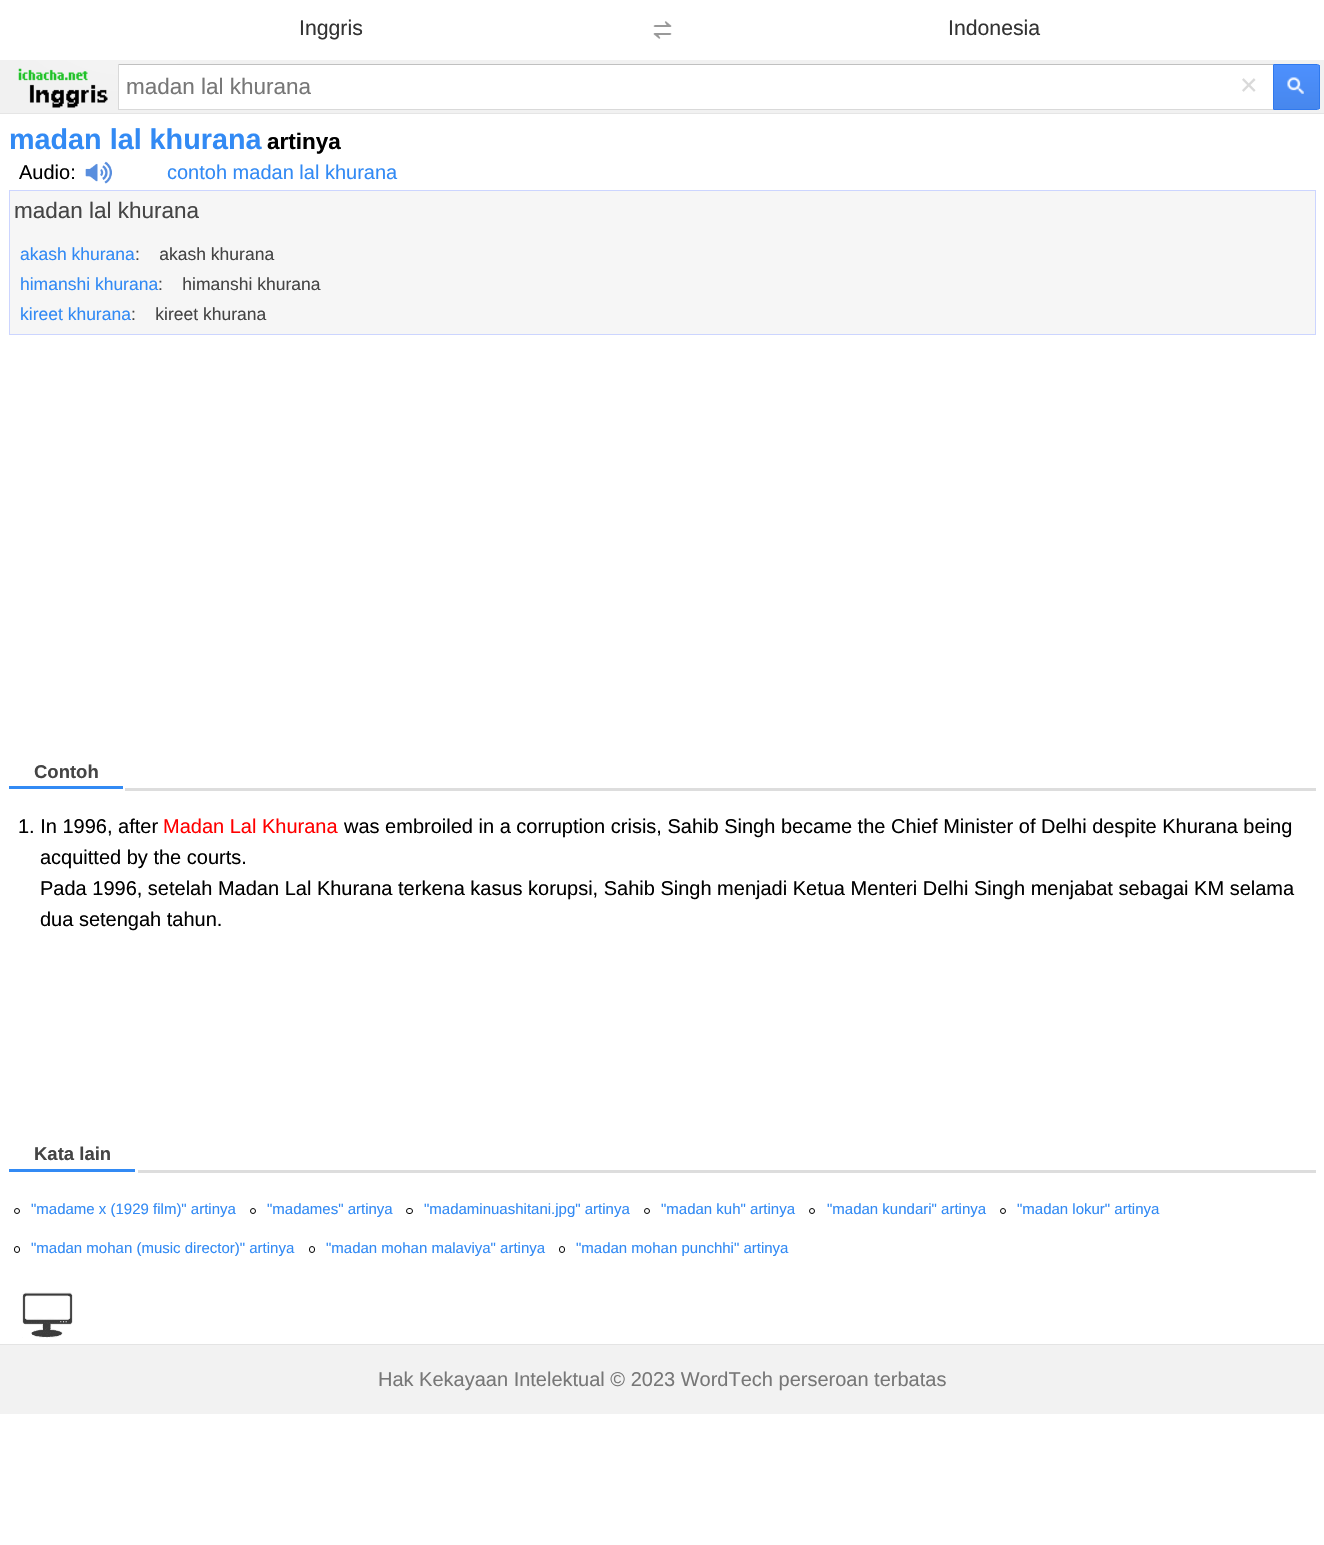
void draw(SkCanvas* canvas) {
    SkPaint paint;
    paint.setAntiAlias(true);
    canvas->clear(0xFFFFFFFF);
    {
        const SkColor colors[] = {0xFFFAFAFA, 0xFFF1F1F1};
        const float stops[] = {0, 1};
        paint.setShader(SkGradientShader::MakeRadial({125, -50}, 150, colors, stops, 2, SkTileMode::kClamp));
        paint.setAlpha(255);
    }
    canvas->drawRect(SkRect::MakeXYWH(0, 60, 1324, 53), paint);
    paint.setShader(nullptr);
    paint.setColor(0xFFE5E5E5);
    canvas->drawRect(SkRect::MakeXYWH(0, 113, 1324, 1), paint);
    SkFont font1(fontMgr->matchFamilyStyle("Liberation Sans", SkFontStyle::Normal()), 21.25f);
    font1.setSubpixel(true);
    paint.setColor(0xFF333333);
    canvas->drawString("Inggris", 299, 35, font1, paint);
    canvas->drawImageRect(SkImages::DeferredFromEncodedData(SkData::MakeFromFileName("img1.png")), SkRect::MakeXYWH(653, 21, 19, 18), SkSamplingOptions());
    canvas->drawString("Indonesia", 948, 35, font1, paint);
    canvas->drawImageRect(SkImages::DeferredFromEncodedData(SkData::MakeFromFileName("img2.png")), SkRect::MakeXYWH(18, 68, 90, 40), SkSamplingOptions());
    paint.setColor(0xFFFFFFFF);
    canvas->drawRect(SkRect::MakeXYWH(119, 65, 1154, 44), paint);
    paint.setColor(0xFFC0C0C0);
    canvas->drawRect(SkRect::MakeXYWH(118, 64, 1155, 1), paint);
    paint.setColor(0xFFD9D9D9);
    canvas->drawRect(SkRect::MakeXYWH(118, 109, 1155, 1), paint);
    canvas->drawRect(SkRect::MakeXYWH(118, 64, 1, 46), paint);
    SkFont font2(fontMgr->matchFamilyStyle("Liberation Sans", SkFontStyle::Normal()), 22.5f);
    font2.setSubpixel(true);
    paint.setColor(0xFF777777);
    canvas->drawString("madan lal khurana", 126, 94, font2, paint);
    SkFont font3(fontMgr->matchFamilyStyle("Liberation Sans", SkFontStyle::Normal()), 30);
    font3.setSubpixel(true);
    paint.setColor(0xFFD9D9D9);
    canvas->drawString("×", 1240, 95, font3, paint);
    {
        const SkColor colors[] = {0xFF4D90FE, 0xFF4787ED};
        const float stops[] = {0, 1};
        const SkPoint ends[] = {{1274, 65}, {1274, 109}};
        paint.setShader(SkGradientShader::MakeLinear(ends, colors, stops, 2, SkTileMode::kClamp));
        paint.setAlpha(255);
    }
    canvas->drawRect(SkRect::MakeXYWH(1274, 65, 46, 44), paint);
    paint.setStyle(SkPaint::kStroke_Style);
    paint.setStrokeWidth(1);
    paint.setShader(nullptr);
    paint.setColor(0xFF3079ED);
    canvas->drawPath(SkPathBuilder().moveTo(1273.5f, 64.5f).lineTo(1317.5f, 64.5f).cubicTo(1318.5f, 64.5f, 1319.5f, 65.5f, 1319.5f, 66.5f).lineTo(1319.5f, 107.5f).cubicTo(1319.5f, 108.5f, 1318.5f, 109.5f, 1317.5f, 109.5f).lineTo(1273.5f, 109.5f).close().detach(), paint);
    canvas->drawImageRect(SkImages::DeferredFromEncodedData(SkData::MakeFromFileName("img3.png")), SkRect::MakeXYWH(1287, 77, 17, 17), SkSamplingOptions());
    SkFont font4(fontMgr->matchFamilyStyle("Liberation Sans", SkFontStyle::Bold()), 28.75f);
    font4.setSubpixel(true);
    paint.setStyle(SkPaint::kFill_Style);
    paint.setColor(0xFF328AF4);
    canvas->drawString("madan lal khurana", 9, 149, font4, paint);
    SkFont font5(fontMgr->matchFamilyStyle("Liberation Sans", SkFontStyle::Bold()), 22.5f);
    font5.setSubpixel(true);
    paint.setColor(0xFF000000);
    canvas->drawString("artinya", 267, 149, font5, paint);
    SkFont font6(fontMgr->matchFamilyStyle("Liberation Sans", SkFontStyle::Normal()), 20);
    font6.setSubpixel(true);
    canvas->drawString("Audio:", 19, 179, font6, paint);
    canvas->drawImageRect(SkImages::DeferredFromEncodedData(SkData::MakeFromFileName("img4.png")), SkRect::MakeXYWH(85, 161, 27, 23), SkSamplingOptions());
    paint.setColor(0xFF328AF4);
    canvas->drawString("contoh madan lal khurana", 167, 179, font6, paint);
    paint.setColor(0xFFF6F6F6);
    canvas->drawRect(SkRect::MakeXYWH(9.5f, 190.5f, 1306, 144), paint);
    paint.setStyle(SkPaint::kStroke_Style);
    paint.setColor(0xFFCCD5FF);
    canvas->drawRect(SkRect::MakeXYWH(9.5f, 190.5f, 1306, 144), paint);
    paint.setStyle(SkPaint::kFill_Style);
    paint.setColor(0xFF454545);
    canvas->drawString("madan lal khurana", 14, 218, font2, paint);
    SkFont font7(fontMgr->matchFamilyStyle("Liberation Sans", SkFontStyle::Normal()), 17.5f);
    font7.setSubpixel(true);
    paint.setColor(0xFF328AF4);
    canvas->drawString("akash khurana", 20, 260, font7, paint);
    paint.setColor(0xFF454545);
    canvas->drawString(":    akash khurana", 135, 260, font7, paint);
    paint.setColor(0xFF328AF4);
    canvas->drawString("himanshi khurana", 20, 290, font7, paint);
    paint.setColor(0xFF454545);
    canvas->drawString(":    himanshi khurana", 158, 290, font7, paint);
    paint.setColor(0xFF328AF4);
    canvas->drawString("kireet khurana", 20, 320, font7, paint);
    paint.setColor(0xFF454545);
    canvas->drawString(":    kireet khurana", 131, 320, font7, paint);
    paint.setColor(0xFFDDDDDD);
    canvas->drawRect(SkRect::MakeXYWH(125, 788, 1191, 3), paint);
    paint.setColor(0xFF328AF4);
    canvas->drawRect(SkRect::MakeXYWH(9, 786, 114, 3), paint);
    SkFont font8(fontMgr->matchFamilyStyle("Liberation Sans", SkFontStyle::Bold()), 18.5f);
    font8.setSubpixel(true);
    paint.setColor(0xFF454545);
    canvas->drawString("Contoh", 34, 778, font8, paint);
    paint.setColor(0xFF000000);
    canvas->drawString("1. In 1996, after", 18, 833, font6, paint);
    paint.setColor(0xFFFF0000);
    canvas->drawString("Madan Lal Khurana", 163, 833, font6, paint);
    paint.setColor(0xFF000000);
    canvas->drawString("was embroiled in a corruption crisis, Sahib Singh became the Chief Minister of Delhi despite Khurana being", 344, 833, font6, paint);
    canvas->drawString("acquitted by the courts.", 40, 864, font6, paint);
    canvas->drawString("Pada 1996, setelah Madan Lal Khurana terkena kasus korupsi, Sahib Singh menjadi Ketua Menteri Delhi Singh menjabat sebagai KM selama", 40, 895, font6, paint);
    canvas->drawString("dua setengah tahun.", 40, 926, font6, paint);
    paint.setColor(0xFFDDDDDD);
    canvas->drawRect(SkRect::MakeXYWH(138, 1170, 1178, 3), paint);
    paint.setColor(0xFF328AF4);
    canvas->drawRect(SkRect::MakeXYWH(9, 1169, 126, 3), paint);
    paint.setColor(0xFF454545);
    canvas->drawString("Kata lain", 34, 1160, font8, paint);
    paint.setStyle(SkPaint::kStroke_Style);
    paint.setColor(0xFF000000);
    canvas->drawCircle(17, 1211, 2.5f, paint);
    SkFont font9(fontMgr->matchFamilyStyle("Liberation Sans", SkFontStyle::Normal()), 15);
    font9.setSubpixel(true);
    paint.setStyle(SkPaint::kFill_Style);
    paint.setColor(0xFF328AF4);
    canvas->drawString("\"madame x (1929 film)\" artinya", 31, 1214, font9, paint);
    paint.setStyle(SkPaint::kStroke_Style);
    paint.setColor(0xFF000000);
    canvas->drawCircle(253, 1211, 2.5f, paint);
    paint.setStyle(SkPaint::kFill_Style);
    paint.setColor(0xFF328AF4);
    canvas->drawString("\"madames\" artinya", 267, 1214, font9, paint);
    paint.setStyle(SkPaint::kStroke_Style);
    paint.setColor(0xFF000000);
    canvas->drawRoundRect(SkRect::MakeXYWH(406.5f, 1208.5f, 6, 5), 2.5f, 2.5f, paint);
    paint.setStyle(SkPaint::kFill_Style);
    paint.setColor(0xFF328AF4);
    canvas->drawString("\"madaminuashitani.jpg\" artinya", 424, 1214, font9, paint);
    paint.setStyle(SkPaint::kStroke_Style);
    paint.setColor(0xFF000000);
    canvas->drawCircle(647, 1211, 2.5f, paint);
    paint.setStyle(SkPaint::kFill_Style);
    paint.setColor(0xFF328AF4);
    canvas->drawString("\"madan kuh\" artinya", 661, 1214, font9, paint);
    paint.setStyle(SkPaint::kStroke_Style);
    paint.setColor(0xFF000000);
    canvas->drawCircle(812, 1211, 2.5f, paint);
    paint.setStyle(SkPaint::kFill_Style);
    paint.setColor(0xFF328AF4);
    canvas->drawString("\"madan kundari\" artinya", 827, 1214, font9, paint);
    paint.setStyle(SkPaint::kStroke_Style);
    paint.setColor(0xFF000000);
    canvas->drawCircle(1003, 1211, 2.5f, paint);
    paint.setStyle(SkPaint::kFill_Style);
    paint.setColor(0xFF328AF4);
    canvas->drawString("\"madan lokur\" artinya", 1017, 1214, font9, paint);
    paint.setStyle(SkPaint::kStroke_Style);
    paint.setColor(0xFF000000);
    canvas->drawRoundRect(SkRect::MakeXYWH(14.5f, 1246.5f, 5, 6), 2.5f, 2.5f, paint);
    paint.setStyle(SkPaint::kFill_Style);
    paint.setColor(0xFF328AF4);
    canvas->drawString("\"madan mohan (music director)\" artinya", 31, 1253, font9, paint);
    paint.setStyle(SkPaint::kStroke_Style);
    paint.setColor(0xFF000000);
    canvas->drawRoundRect(SkRect::MakeXYWH(309.5f, 1246.5f, 5, 6), 2.5f, 2.5f, paint);
    paint.setStyle(SkPaint::kFill_Style);
    paint.setColor(0xFF328AF4);
    canvas->drawString("\"madan mohan malaviya\" artinya", 326, 1253, font9, paint);
    paint.setStyle(SkPaint::kStroke_Style);
    paint.setColor(0xFF000000);
    canvas->drawRoundRect(SkRect::MakeXYWH(559.5f, 1246.5f, 5, 6), 2.5f, 2.5f, paint);
    paint.setStyle(SkPaint::kFill_Style);
    paint.setColor(0xFF328AF4);
    canvas->drawString("\"madan mohan punchhi\" artinya", 576, 1253, font9, paint);
    canvas->drawImageRect(SkImages::DeferredFromEncodedData(SkData::MakeFromFileName("img5.png")), SkRect::MakeXYWH(22, 1292, 51, 46), SkSamplingOptions());
    paint.setColor(0xFFF2F2F2);
    canvas->drawRect(SkRect::MakeXYWH(0, 1345, 1324, 69), paint);
    paint.setColor(0xFFE4E4E4);
    canvas->drawRect(SkRect::MakeXYWH(0, 1344, 1324, 1), paint);
    paint.setColor(0xFF777777);
    canvas->drawString("Hak Kekayaan Intelektual © 2023 WordTech perseroan terbatas", 378, 1386, font6, paint);
}
